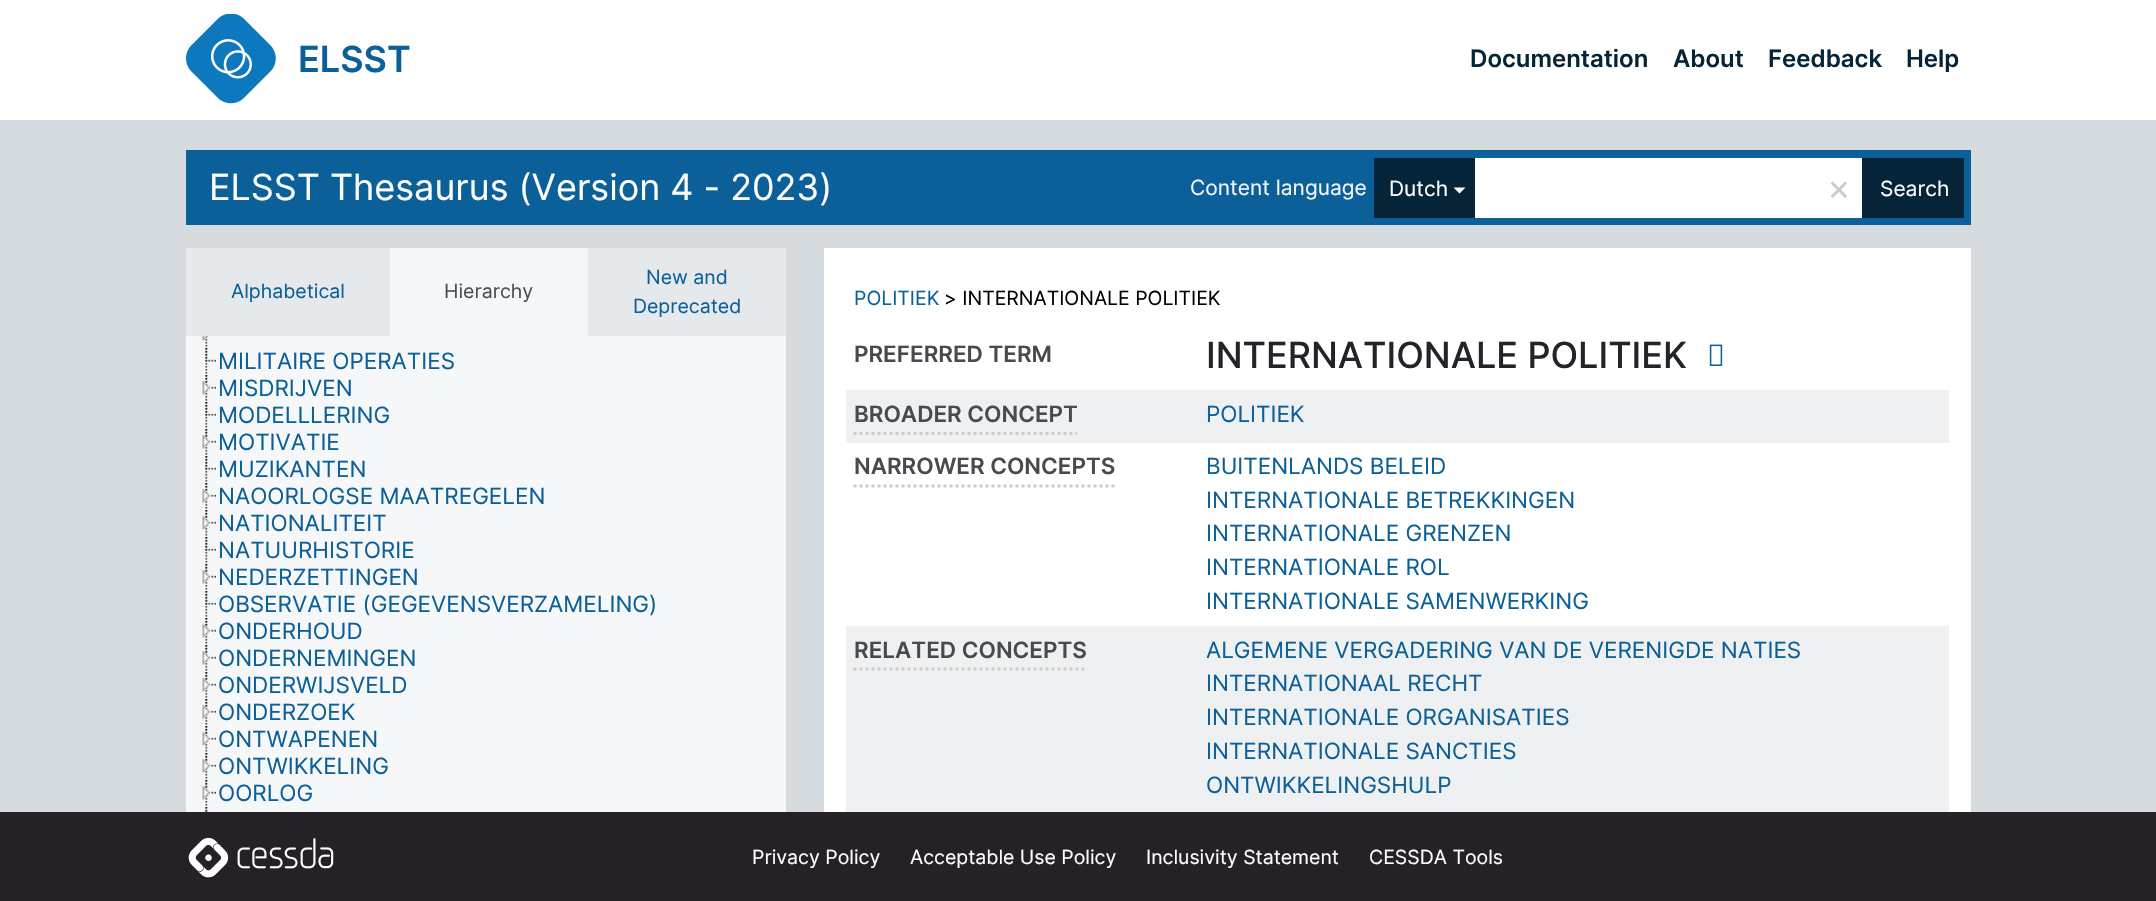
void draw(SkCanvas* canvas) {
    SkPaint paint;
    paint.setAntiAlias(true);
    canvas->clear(0xFFD5DBDE);
    paint.setColor(0xFFFFFFFF);
    canvas->drawRect(SkRect::MakeXYWH(0, 0, 2156, 120), paint);
    canvas->drawImageRect(SkImages::DeferredFromEncodedData(SkData::MakeFromFileName("img1.png")), SkRect::MakeXYWH(186, 14, 90, 90), SkSamplingOptions());
    SkFont font1(fontMgr->matchFamilyStyle("Inter", SkFontStyle(600, SkFontStyle::kNormal_Width, SkFontStyle::kUpright_Slant)), 36);
    font1.setSubpixel(true);
    paint.setColor(0xFF0B6099);
    canvas->drawString("ELSST", 298, 72, font1, paint);
    SkFont font2(fontMgr->matchFamilyStyle("Inter", SkFontStyle(600, SkFontStyle::kNormal_Width, SkFontStyle::kUpright_Slant)), 24);
    font2.setSubpixel(true);
    paint.setColor(0xFF052438);
    canvas->drawString("Documentation", 1470, 67, font2, paint);
    canvas->drawString("About", 1673, 67, font2, paint);
    canvas->drawString("Feedback", 1768, 67, font2, paint);
    canvas->drawString("Help", 1906, 67, font2, paint);
    paint.setColor(0xFF0B6099);
    canvas->drawRect(SkRect::MakeXYWH(186, 150, 1785, 75), paint);
    SkFont font3(fontMgr->matchFamilyStyle("Inter", SkFontStyle::Normal()), 36);
    font3.setSubpixel(true);
    paint.setColor(0xFFFDFDFE);
    canvas->drawString("ELSST Thesaurus (Version 4 - 2023)", 209, 200, font3, paint);
    SkFont font4(fontMgr->matchFamilyStyle("Inter", SkFontStyle::Normal()), 21);
    font4.setSubpixel(true);
    paint.setColor(0xFFF3F7FA);
    canvas->drawString("Content language", 1190, 195, font4, paint);
    paint.setColor(0xFF052438);
    canvas->drawRect(SkRect::MakeXYWH(1374, 158, 101, 60), paint);
    paint.setColor(0xFFFDFDFE);
    canvas->drawString("Dutch", 1389, 196, font4, paint);
    paint.setColor(0xFFFFFFFF);
    canvas->drawPath(SkPathBuilder().moveTo(1453.5f, 187.5f).lineTo(1465.5f, 187.5f).lineTo(1459.5f, 193.5f).close().detach(), paint);
    canvas->drawRect(SkRect::MakeXYWH(1475, 158, 387, 60), paint);
    paint.setColor(0xFFCCCCCC);
    canvas->drawString("×", 1827, 200, font3, paint);
    paint.setColor(0xFF052438);
    canvas->drawRect(SkRect::MakeXYWH(1862, 158, 102, 60), paint);
    paint.setColor(0xFFFDFDFE);
    canvas->drawString("Search", 1880, 196, font4, paint);
    paint.setColor(0xFFE6E9EB);
    canvas->drawRect(SkRect::MakeXYWH(186, 248, 204, 88), paint);
    SkFont font5(fontMgr->matchFamilyStyle("Inter", SkFontStyle::Normal()), 19.5f);
    font5.setSubpixel(true);
    paint.setColor(0xFF0B6099);
    canvas->drawString("Alphabetical", 231, 298, font5, paint);
    paint.setColor(0xFFF6F7F8);
    canvas->drawRect(SkRect::MakeXYWH(390, 248, 198, 88), paint);
    paint.setColor(0xFF495057);
    canvas->drawString("Hierarchy", 444, 298, font5, paint);
    paint.setColor(0xFFE6E9EB);
    canvas->drawRect(SkRect::MakeXYWH(588, 248, 198, 88), paint);
    paint.setColor(0xFF0B6099);
    canvas->drawString("New and", 646, 284, font5, paint);
    canvas->drawString("Deprecated", 633, 313, font5, paint);
    paint.setColor(0xFFF6F7F8);
    canvas->drawRect(SkRect::MakeXYWH(186, 336, 600, 476), paint);
    canvas->drawImageRect(SkImages::DeferredFromEncodedData(SkData::MakeFromFileName("img2.png")), SkRect::MakeXYWH(205, 336, 3, 11), SkSamplingOptions());
    canvas->drawImageRect(SkImages::DeferredFromEncodedData(SkData::MakeFromFileName("img3.png")), SkRect::MakeXYWH(202, 336, 7, 5), SkSamplingOptions());
    canvas->drawImageRect(SkImages::DeferredFromEncodedData(SkData::MakeFromFileName("img4.png")), SkRect::MakeXYWH(205, 348, 3, 26), SkSamplingOptions());
    canvas->drawImageRect(SkImages::DeferredFromEncodedData(SkData::MakeFromFileName("img5.png")), SkRect::MakeXYWH(205, 348, 11, 14), SkSamplingOptions());
    SkFont font6(fontMgr->matchFamilyStyle("Inter", SkFontStyle::Normal()), 22.5f);
    font6.setSubpixel(true);
    paint.setColor(0xFF0B6099);
    canvas->drawString("MILITAIRE OPERATIES", 218, 369, font6, paint);
    canvas->drawImageRect(SkImages::DeferredFromEncodedData(SkData::MakeFromFileName("img4.png")), SkRect::MakeXYWH(205, 375, 3, 26), SkSamplingOptions());
    canvas->drawImageRect(SkImages::DeferredFromEncodedData(SkData::MakeFromFileName("img6.png")), SkRect::MakeXYWH(202, 375, 14, 20), SkSamplingOptions());
    canvas->drawString("MISDRIJVEN", 218, 396, font6, paint);
    canvas->drawImageRect(SkImages::DeferredFromEncodedData(SkData::MakeFromFileName("img4.png")), SkRect::MakeXYWH(205, 402, 3, 26), SkSamplingOptions());
    canvas->drawImageRect(SkImages::DeferredFromEncodedData(SkData::MakeFromFileName("img5.png")), SkRect::MakeXYWH(205, 402, 11, 14), SkSamplingOptions());
    canvas->drawString("MODELLLERING", 218, 423, font6, paint);
    canvas->drawImageRect(SkImages::DeferredFromEncodedData(SkData::MakeFromFileName("img4.png")), SkRect::MakeXYWH(205, 429, 3, 26), SkSamplingOptions());
    canvas->drawImageRect(SkImages::DeferredFromEncodedData(SkData::MakeFromFileName("img6.png")), SkRect::MakeXYWH(202, 429, 14, 20), SkSamplingOptions());
    canvas->drawString("MOTIVATIE", 218, 450, font6, paint);
    canvas->drawImageRect(SkImages::DeferredFromEncodedData(SkData::MakeFromFileName("img4.png")), SkRect::MakeXYWH(205, 456, 3, 26), SkSamplingOptions());
    canvas->drawImageRect(SkImages::DeferredFromEncodedData(SkData::MakeFromFileName("img5.png")), SkRect::MakeXYWH(205, 456, 11, 14), SkSamplingOptions());
    canvas->drawString("MUZIKANTEN", 218, 477, font6, paint);
    canvas->drawImageRect(SkImages::DeferredFromEncodedData(SkData::MakeFromFileName("img4.png")), SkRect::MakeXYWH(205, 483, 3, 26), SkSamplingOptions());
    canvas->drawImageRect(SkImages::DeferredFromEncodedData(SkData::MakeFromFileName("img6.png")), SkRect::MakeXYWH(202, 483, 14, 20), SkSamplingOptions());
    canvas->drawString("NAOORLOGSE MAATREGELEN", 218, 504, font6, paint);
    canvas->drawImageRect(SkImages::DeferredFromEncodedData(SkData::MakeFromFileName("img4.png")), SkRect::MakeXYWH(205, 510, 3, 26), SkSamplingOptions());
    canvas->drawImageRect(SkImages::DeferredFromEncodedData(SkData::MakeFromFileName("img6.png")), SkRect::MakeXYWH(202, 510, 14, 20), SkSamplingOptions());
    canvas->drawString("NATIONALITEIT", 218, 531, font6, paint);
    canvas->drawImageRect(SkImages::DeferredFromEncodedData(SkData::MakeFromFileName("img4.png")), SkRect::MakeXYWH(205, 537, 3, 26), SkSamplingOptions());
    canvas->drawImageRect(SkImages::DeferredFromEncodedData(SkData::MakeFromFileName("img5.png")), SkRect::MakeXYWH(205, 537, 11, 14), SkSamplingOptions());
    canvas->drawString("NATUURHISTORIE", 218, 558, font6, paint);
    canvas->drawImageRect(SkImages::DeferredFromEncodedData(SkData::MakeFromFileName("img4.png")), SkRect::MakeXYWH(205, 564, 3, 26), SkSamplingOptions());
    canvas->drawImageRect(SkImages::DeferredFromEncodedData(SkData::MakeFromFileName("img6.png")), SkRect::MakeXYWH(202, 564, 14, 20), SkSamplingOptions());
    canvas->drawString("NEDERZETTINGEN", 218, 585, font6, paint);
    canvas->drawImageRect(SkImages::DeferredFromEncodedData(SkData::MakeFromFileName("img4.png")), SkRect::MakeXYWH(205, 591, 3, 26), SkSamplingOptions());
    canvas->drawImageRect(SkImages::DeferredFromEncodedData(SkData::MakeFromFileName("img5.png")), SkRect::MakeXYWH(205, 591, 11, 14), SkSamplingOptions());
    canvas->drawString("OBSERVATIE (GEGEVENSVERZAMELING)", 218, 612, font6, paint);
    canvas->drawImageRect(SkImages::DeferredFromEncodedData(SkData::MakeFromFileName("img4.png")), SkRect::MakeXYWH(205, 618, 3, 26), SkSamplingOptions());
    canvas->drawImageRect(SkImages::DeferredFromEncodedData(SkData::MakeFromFileName("img6.png")), SkRect::MakeXYWH(202, 618, 14, 20), SkSamplingOptions());
    canvas->drawString("ONDERHOUD", 218, 639, font6, paint);
    canvas->drawImageRect(SkImages::DeferredFromEncodedData(SkData::MakeFromFileName("img4.png")), SkRect::MakeXYWH(205, 645, 3, 26), SkSamplingOptions());
    canvas->drawImageRect(SkImages::DeferredFromEncodedData(SkData::MakeFromFileName("img6.png")), SkRect::MakeXYWH(202, 645, 14, 20), SkSamplingOptions());
    canvas->drawString("ONDERNEMINGEN", 218, 666, font6, paint);
    canvas->drawImageRect(SkImages::DeferredFromEncodedData(SkData::MakeFromFileName("img4.png")), SkRect::MakeXYWH(205, 672, 3, 26), SkSamplingOptions());
    canvas->drawImageRect(SkImages::DeferredFromEncodedData(SkData::MakeFromFileName("img6.png")), SkRect::MakeXYWH(202, 672, 14, 20), SkSamplingOptions());
    canvas->drawString("ONDERWIJSVELD", 218, 693, font6, paint);
    canvas->drawImageRect(SkImages::DeferredFromEncodedData(SkData::MakeFromFileName("img4.png")), SkRect::MakeXYWH(205, 699, 3, 26), SkSamplingOptions());
    canvas->drawImageRect(SkImages::DeferredFromEncodedData(SkData::MakeFromFileName("img6.png")), SkRect::MakeXYWH(202, 699, 14, 20), SkSamplingOptions());
    canvas->drawString("ONDERZOEK", 218, 720, font6, paint);
    canvas->drawImageRect(SkImages::DeferredFromEncodedData(SkData::MakeFromFileName("img4.png")), SkRect::MakeXYWH(205, 726, 3, 26), SkSamplingOptions());
    canvas->drawImageRect(SkImages::DeferredFromEncodedData(SkData::MakeFromFileName("img6.png")), SkRect::MakeXYWH(202, 726, 14, 20), SkSamplingOptions());
    canvas->drawString("ONTWAPENEN", 218, 747, font6, paint);
    canvas->drawImageRect(SkImages::DeferredFromEncodedData(SkData::MakeFromFileName("img4.png")), SkRect::MakeXYWH(205, 753, 3, 26), SkSamplingOptions());
    canvas->drawImageRect(SkImages::DeferredFromEncodedData(SkData::MakeFromFileName("img6.png")), SkRect::MakeXYWH(202, 753, 14, 20), SkSamplingOptions());
    canvas->drawString("ONTWIKKELING", 218, 774, font6, paint);
    canvas->drawImageRect(SkImages::DeferredFromEncodedData(SkData::MakeFromFileName("img4.png")), SkRect::MakeXYWH(205, 780, 3, 26), SkSamplingOptions());
    canvas->drawImageRect(SkImages::DeferredFromEncodedData(SkData::MakeFromFileName("img6.png")), SkRect::MakeXYWH(202, 780, 14, 20), SkSamplingOptions());
    canvas->drawString("OORLOG", 218, 801, font6, paint);
    canvas->drawImageRect(SkImages::DeferredFromEncodedData(SkData::MakeFromFileName("img7.png")), SkRect::MakeXYWH(205, 807, 3, 5), SkSamplingOptions());
    canvas->drawImageRect(SkImages::DeferredFromEncodedData(SkData::MakeFromFileName("img8.png")), SkRect::MakeXYWH(205, 807, 3, 5), SkSamplingOptions());
    paint.setColor(0xFFFFFFFF);
    canvas->drawRect(SkRect::MakeXYWH(824, 248, 1147, 564), paint);
    paint.setColor(0xFF0B6099);
    canvas->drawString("POLITIEK", 854, 305, font5, paint);
    paint.setColor(0xFF000000);
    canvas->drawString("> INTERNATIONALE POLITIEK", 944, 305, font5, paint);
    SkFont font7(fontMgr->matchFamilyStyle("Inter", SkFontStyle(600, SkFontStyle::kNormal_Width, SkFontStyle::kUpright_Slant)), 22.5f);
    font7.setSubpixel(true);
    paint.setColor(0xFF474B4F);
    canvas->drawString("PREFERRED TERM", 854, 362, font7, paint);
    SkFont font8(fontMgr->matchFamilyStyle("Inter", SkFontStyle(500, SkFontStyle::kNormal_Width, SkFontStyle::kUpright_Slant)), 36);
    font8.setSubpixel(true);
    paint.setColor(0xFF212529);
    canvas->drawString("INTERNATIONALE POLITIEK", 1206, 368, font8, paint);
    canvas->drawImageRect(SkImages::DeferredFromEncodedData(SkData::MakeFromFileName("img9.png")), SkRect::MakeXYWH(1709, 344, 14, 22), SkSamplingOptions());
    paint.setColor(0xFFEFF0F1);
    canvas->drawRect(SkRect::MakeXYWH(846, 390, 1103, 53), paint);
    paint.setStyle(SkPaint::kStroke_Style);
    paint.setStrokeWidth(3);
    paint.setColor(0xFFCCCCCC);
    paint.setPathEffect(SkDashPathEffect::Make({{3, 3}}, 0));
    canvas->drawPath(SkPathBuilder().moveTo(853.5f, 433.5f).lineTo(1077, 433.5f).detach(), paint);
    paint.setPathEffect(nullptr);
    paint.setStyle(SkPaint::kFill_Style);
    paint.setColor(0xFF474B4F);
    canvas->drawString("BROADER CONCEPT", 854, 422, font7, paint);
    paint.setColor(0xFF0B6099);
    canvas->drawString("POLITIEK", 1206, 422, font6, paint);
    paint.setStyle(SkPaint::kStroke_Style);
    paint.setColor(0xFFCCCCCC);
    paint.setPathEffect(SkDashPathEffect::Make({{3, 3}}, 0));
    canvas->drawPath(SkPathBuilder().moveTo(853.5f, 486).lineTo(1114.5f, 486).detach(), paint);
    paint.setPathEffect(nullptr);
    paint.setStyle(SkPaint::kFill_Style);
    paint.setColor(0xFF474B4F);
    canvas->drawString("NARROWER CONCEPTS", 854, 474, font7, paint);
    paint.setColor(0xFF0B6099);
    canvas->drawString("BUITENLANDS BELEID", 1206, 474, font6, paint);
    canvas->drawString("INTERNATIONALE BETREKKINGEN", 1206, 508, font6, paint);
    canvas->drawString("INTERNATIONALE GRENZEN", 1206, 541, font6, paint);
    canvas->drawString("INTERNATIONALE ROL", 1206, 575, font6, paint);
    canvas->drawString("INTERNATIONALE SAMENWERKING", 1206, 609, font6, paint);
    paint.setColor(0xFFEFF0F1);
    canvas->drawRect(SkRect::MakeXYWH(846, 626, 1103, 186), paint);
    paint.setStyle(SkPaint::kStroke_Style);
    paint.setColor(0xFFCCCCCC);
    paint.setPathEffect(SkDashPathEffect::Make({{3, 3}}, 0));
    canvas->drawPath(SkPathBuilder().moveTo(853.5f, 669).lineTo(1086, 669).detach(), paint);
    paint.setPathEffect(nullptr);
    paint.setStyle(SkPaint::kFill_Style);
    paint.setColor(0xFF474B4F);
    canvas->drawString("RELATED CONCEPTS", 854, 658, font7, paint);
    paint.setColor(0xFF0B6099);
    canvas->drawString("ALGEMENE VERGADERING VAN DE VERENIGDE NATIES", 1206, 658, font6, paint);
    canvas->drawString("INTERNATIONAAL RECHT", 1206, 691, font6, paint);
    canvas->drawString("INTERNATIONALE ORGANISATIES", 1206, 725, font6, paint);
    canvas->drawString("INTERNATIONALE SANCTIES", 1206, 759, font6, paint);
    canvas->drawString("ONTWIKKELINGSHULP", 1206, 793, font6, paint);
    paint.setColor(0xFF262126);
    canvas->drawRect(SkRect::MakeXYWH(0, 812, 2156, 89), paint);
    canvas->drawImageRect(SkImages::DeferredFromEncodedData(SkData::MakeFromFileName("img10.png")), SkRect::MakeXYWH(188, 837, 146, 41), SkSamplingOptions());
    paint.setColor(0xFFFDFDFE);
    canvas->drawString("Privacy Policy", 752, 864, font5, paint);
    canvas->drawString("Acceptable Use Policy", 910, 864, font5, paint);
    canvas->drawString("Inclusivity Statement", 1146, 864, font5, paint);
    canvas->drawString("CESSDA Tools", 1369, 864, font5, paint);
}
